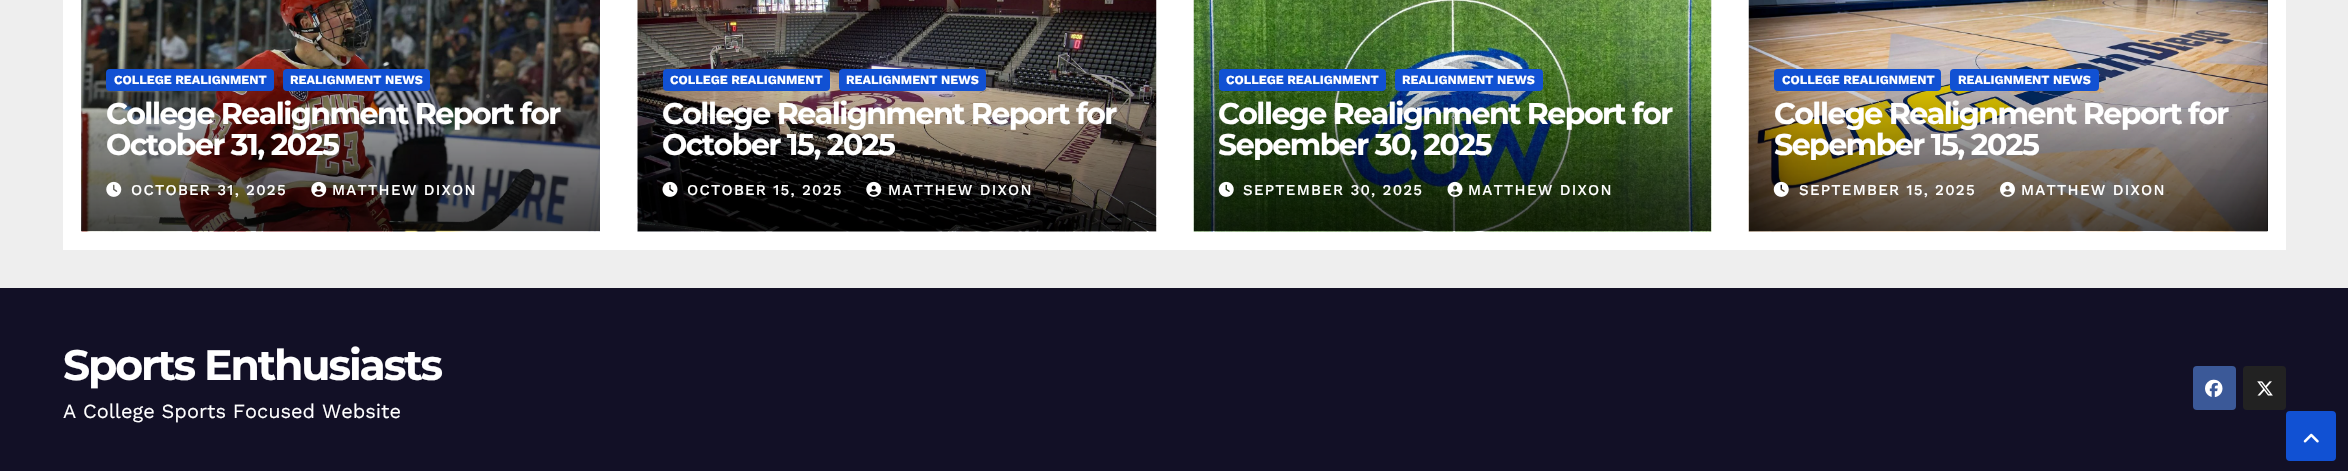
void draw(SkCanvas* canvas) {
    SkPaint paint;
    paint.setAntiAlias(true);
    auto spacedText = [&](const char* s, float x, float y, const SkFont& font, const SkPaint& ink, float letter, float word) {
        std::vector<SkGlyphID> glyphs(font.countText(s, strlen(s), SkTextEncoding::kUTF8));
        std::vector<float> xs(glyphs.size());
        font.textToGlyphs(s, strlen(s), SkTextEncoding::kUTF8, glyphs);
        font.getXPos(glyphs, xs, x);
        float extra = 0;
        for (size_t i = 0; i < glyphs.size(); i++) {
            xs[i] += extra;
            extra += letter + word * (glyphs[i] == font.unicharToGlyph(' '));
        }
        canvas->drawTextBlob(SkTextBlob::MakeFromPosHGlyphs(glyphs, xs, y, font), 0, 0, ink);
    };
    canvas->clear(0xFFEEEEEE);
    paint.setColor(0xFFFFFFFF);
    canvas->drawRect(SkRect::MakeXYWH(63, 0, 2223, 250), paint);
    canvas->drawImageRect(SkImages::DeferredFromEncodedData(SkData::MakeFromFileName("img1.png")), SkRect::MakeXYWH(81, 0, 519, 232), SkSamplingOptions());
    {
        const SkColor colors[] = {0x00000000, 0x66000000, 0xB3000000};
        const float stops[] = {0, 0.5f, 1};
        const SkPoint ends[] = {{341, 56}, {341, 231}};
        paint.setShader(SkGradientShader::MakeLinear(ends, colors, stops, 3, SkTileMode::kClamp));
        paint.setAlpha(255);
    }
    canvas->drawRect(SkRect::MakeXYWH(81, 61, 519, 170), paint);
    paint.setShader(nullptr);
    paint.setColor(0xFF1151D3);
    canvas->drawRoundRect(SkRect::MakeXYWH(106, 69, 168, 22), 4, 4, paint);
    SkFont font1(fontMgr->matchFamilyStyle("Work Sans", SkFontStyle::Bold()), 12.5f);
    font1.setSubpixel(true);
    paint.setColor(0xFFFFFFFF);
    canvas->drawString("COLLEGE REALIGNMENT", 114, 84, font1, paint);
    paint.setColor(0xFF1151D3);
    canvas->drawRoundRect(SkRect::MakeXYWH(283, 69, 147, 22), 4, 4, paint);
    paint.setColor(0xFFFFFFFF);
    canvas->drawString("REALIGNMENT NEWS", 290, 84, font1, paint);
    SkFont font2(fontMgr->matchFamilyStyle("Montserrat", SkFontStyle::Bold()), 30);
    font2.setSubpixel(true);
    spacedText("College Realignment Report for", 106, 124, font2, paint, -1.5f, 0);
    spacedText("October 31, 2025", 106, 155, font2, paint, -1.5f, 0);
    canvas->drawImageRect(SkImages::DeferredFromEncodedData(SkData::MakeFromFileName("img2.png")), SkRect::MakeXYWH(106, 181, 16, 16), SkSamplingOptions());
    SkFont font3(fontMgr->matchFamilyStyle("Work Sans", SkFontStyle(500, SkFontStyle::kNormal_Width, SkFontStyle::kUpright_Slant)), 15);
    font3.setSubpixel(true);
    spacedText("OCTOBER 31, 2025", 131, 195, font3, paint, 1.25f, 0);
    canvas->drawImageRect(SkImages::DeferredFromEncodedData(SkData::MakeFromFileName("img3.png")), SkRect::MakeXYWH(311, 181, 16, 16), SkSamplingOptions());
    spacedText("MATTHEW DIXON", 332, 195, font3, paint, 1.25f, 0);
    canvas->drawImageRect(SkImages::DeferredFromEncodedData(SkData::MakeFromFileName("img4.png")), SkRect::MakeXYWH(637, 0, 520, 232), SkSamplingOptions());
    paint.setColor(0xFF1151D3);
    canvas->drawRoundRect(SkRect::MakeXYWH(663, 69, 167, 22), 4, 4, paint);
    paint.setColor(0xFFFFFFFF);
    canvas->drawString("COLLEGE REALIGNMENT", 670, 84, font1, paint);
    paint.setColor(0xFF1151D3);
    canvas->drawRoundRect(SkRect::MakeXYWH(839, 69, 147, 22), 4, 4, paint);
    paint.setColor(0xFFFFFFFF);
    canvas->drawString("REALIGNMENT NEWS", 846, 84, font1, paint);
    spacedText("College Realignment Report for", 662, 124, font2, paint, -1.5f, 0);
    spacedText("October 15, 2025", 662, 155, font2, paint, -1.5f, 0);
    canvas->drawImageRect(SkImages::DeferredFromEncodedData(SkData::MakeFromFileName("img5.png")), SkRect::MakeXYWH(662, 181, 16, 16), SkSamplingOptions());
    spacedText("OCTOBER 15, 2025", 687, 195, font3, paint, 1.25f, 0);
    canvas->drawImageRect(SkImages::DeferredFromEncodedData(SkData::MakeFromFileName("img6.png")), SkRect::MakeXYWH(866, 181, 16, 16), SkSamplingOptions());
    spacedText("MATTHEW DIXON", 888, 195, font3, paint, 1.25f, 0);
    canvas->drawImageRect(SkImages::DeferredFromEncodedData(SkData::MakeFromFileName("img7.png")), SkRect::MakeXYWH(1193, 0, 519, 232), SkSamplingOptions());
    paint.setColor(0xFF1151D3);
    canvas->drawRoundRect(SkRect::MakeXYWH(1219, 69, 167, 22), 4, 4, paint);
    paint.setColor(0xFFFFFFFF);
    canvas->drawString("COLLEGE REALIGNMENT", 1226, 84, font1, paint);
    paint.setColor(0xFF1151D3);
    canvas->drawRoundRect(SkRect::MakeXYWH(1395, 69, 148, 22), 4, 4, paint);
    paint.setColor(0xFFFFFFFF);
    canvas->drawString("REALIGNMENT NEWS", 1402, 84, font1, paint);
    spacedText("College Realignment Report for", 1218, 124, font2, paint, -1.5f, 0);
    canvas->save();
    canvas->clipRect(SkRect::MakeXYWH(1219, 98, 467, 62));
    spacedText("Sepember 30, 2025", 1218, 155, font2, paint, -1.5f, 0);
    canvas->restore();
    canvas->drawImageRect(SkImages::DeferredFromEncodedData(SkData::MakeFromFileName("img8.png")), SkRect::MakeXYWH(1218, 181, 16, 16), SkSamplingOptions());
    spacedText("SEPTEMBER 30, 2025", 1243, 195, font3, paint, 1.25f, 0);
    canvas->drawImageRect(SkImages::DeferredFromEncodedData(SkData::MakeFromFileName("img9.png")), SkRect::MakeXYWH(1447, 181, 16, 16), SkSamplingOptions());
    spacedText("MATTHEW DIXON", 1468, 195, font3, paint, 1.25f, 0);
    paint.setColor(0xFF333333);
    canvas->drawRect(SkRect::MakeXYWH(2267, 0, 1, 231), paint);
    canvas->drawImageRect(SkImages::DeferredFromEncodedData(SkData::MakeFromFileName("img10.png")), SkRect::MakeXYWH(1748, 0, 520, 232), SkSamplingOptions());
    {
        const SkColor colors[] = {0x00000000, 0x66000000, 0xB3000000};
        const float stops[] = {0, 0.5f, 1};
        const SkPoint ends[] = {{2008, 56}, {2008, 231}};
        paint.setShader(SkGradientShader::MakeLinear(ends, colors, stops, 3, SkTileMode::kClamp));
        paint.setAlpha(255);
    }
    canvas->drawRect(SkRect::MakeXYWH(1749, 61, 519, 170), paint);
    paint.setShader(nullptr);
    paint.setColor(0xFF1151D3);
    canvas->drawRoundRect(SkRect::MakeXYWH(1774, 69, 167, 22), 4, 4, paint);
    paint.setColor(0xFFFFFFFF);
    canvas->drawString("COLLEGE REALIGNMENT", 1782, 84, font1, paint);
    paint.setColor(0xFF1151D3);
    canvas->drawRoundRect(SkRect::MakeXYWH(1950, 69, 149, 22), 4, 4, paint);
    paint.setColor(0xFFFFFFFF);
    canvas->drawString("REALIGNMENT NEWS", 1958, 84, font1, paint);
    spacedText("College Realignment Report for", 1774, 124, font2, paint, -1.5f, 0);
    canvas->save();
    canvas->clipRect(SkRect::MakeXYWH(1774, 98, 469, 62));
    spacedText("Sepember 15, 2025", 1774, 155, font2, paint, -1.5f, 0);
    canvas->restore();
    canvas->drawImageRect(SkImages::DeferredFromEncodedData(SkData::MakeFromFileName("img11.png")), SkRect::MakeXYWH(1773, 181, 16, 16), SkSamplingOptions());
    spacedText("SEPTEMBER 15, 2025", 1799, 195, font3, paint, 1.25f, 0);
    canvas->drawImageRect(SkImages::DeferredFromEncodedData(SkData::MakeFromFileName("img12.png")), SkRect::MakeXYWH(2000, 181, 15, 16), SkSamplingOptions());
    spacedText("MATTHEW DIXON", 2021, 195, font3, paint, 1.25f, 0);
    paint.setColor(0xFF121026);
    canvas->drawRect(SkRect::MakeXYWH(0, 288, 2348, 183), paint);
    SkFont font4(fontMgr->matchFamilyStyle("Montserrat", SkFontStyle::Bold()), 42.5f);
    font4.setSubpixel(true);
    paint.setColor(0xFFFFFFFF);
    spacedText("Sports Enthusiasts", 63, 380, font4, paint, -2.1f, 0);
    SkFont font5(fontMgr->matchFamilyStyle("Work Sans", SkFontStyle::Normal()), 20);
    font5.setSubpixel(true);
    canvas->drawString("A College Sports Focused Website", 63, 418, font5, paint);
    paint.setColor(0xFF3B5998);
    canvas->drawRoundRect(SkRect::MakeXYWH(2193, 366, 43, 44), 4, 4, paint);
    canvas->drawImageRect(SkImages::DeferredFromEncodedData(SkData::MakeFromFileName("img13.png")), SkRect::MakeXYWH(2205, 379, 18, 18), SkSamplingOptions());
    paint.setColor(0xFF222222);
    canvas->drawRoundRect(SkRect::MakeXYWH(2243, 366, 43, 44), 4, 4, paint);
    canvas->drawImageRect(SkImages::DeferredFromEncodedData(SkData::MakeFromFileName("img14.png")), SkRect::MakeXYWH(2257, 381, 16, 15), SkSamplingOptions());
    paint.setColor(0xFF1151D3);
    canvas->drawRoundRect(SkRect::MakeXYWH(2287.5f, 412.5f, 47, 47), 2.5f, 2.5f, paint);
    paint.setStyle(SkPaint::kStroke_Style);
    paint.setStrokeWidth(3);
    canvas->drawRoundRect(SkRect::MakeXYWH(2287.5f, 412.5f, 47, 47), 2.5f, 2.5f, paint);
    canvas->drawImageRect(SkImages::DeferredFromEncodedData(SkData::MakeFromFileName("img15.png")), SkRect::MakeXYWH(2303, 433, 16, 10), SkSamplingOptions());
}
